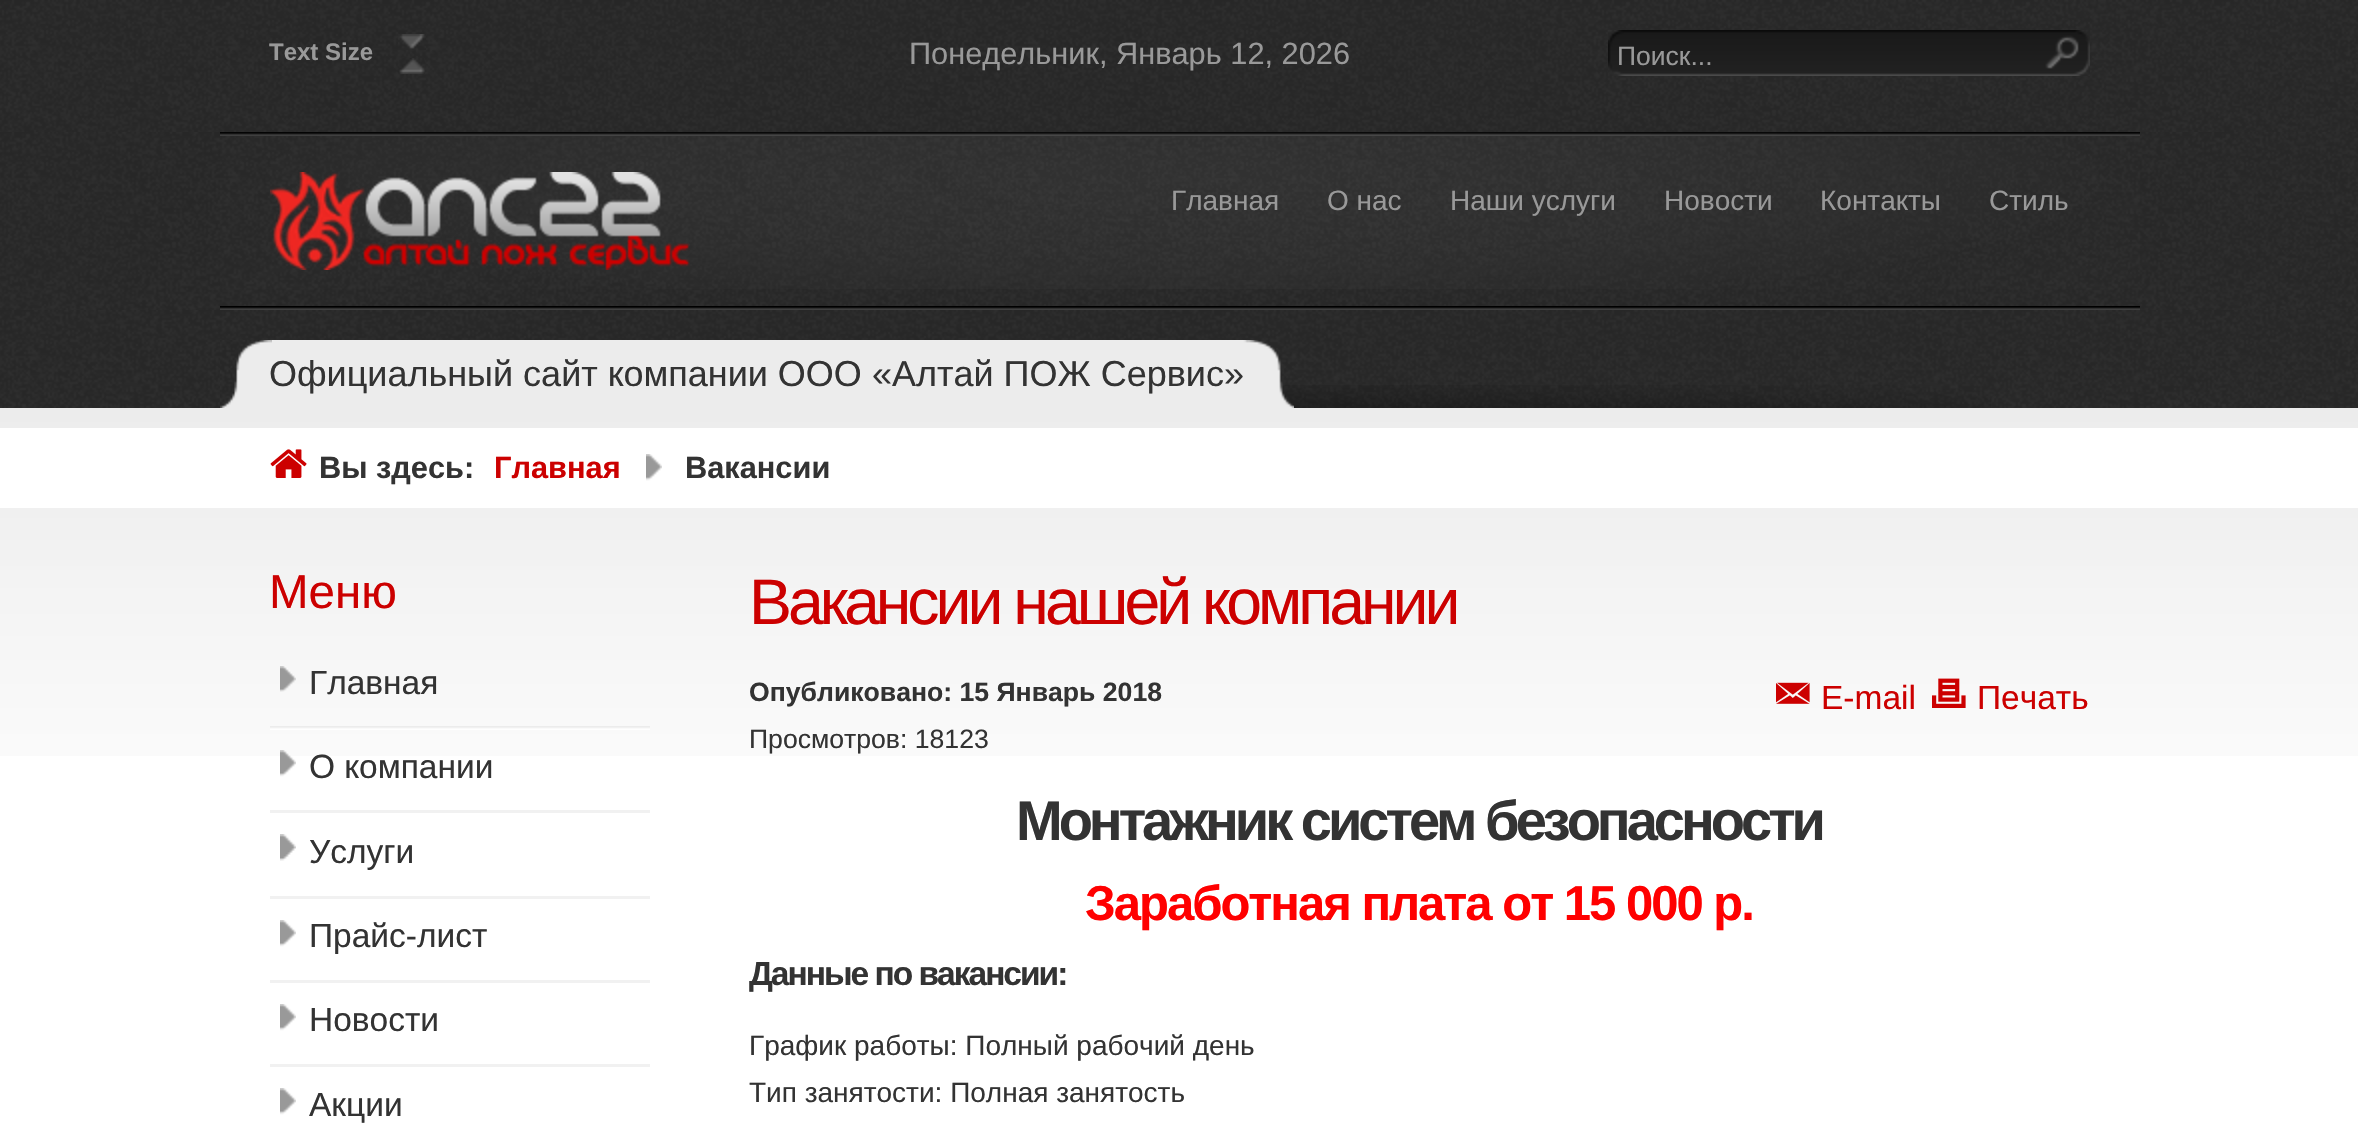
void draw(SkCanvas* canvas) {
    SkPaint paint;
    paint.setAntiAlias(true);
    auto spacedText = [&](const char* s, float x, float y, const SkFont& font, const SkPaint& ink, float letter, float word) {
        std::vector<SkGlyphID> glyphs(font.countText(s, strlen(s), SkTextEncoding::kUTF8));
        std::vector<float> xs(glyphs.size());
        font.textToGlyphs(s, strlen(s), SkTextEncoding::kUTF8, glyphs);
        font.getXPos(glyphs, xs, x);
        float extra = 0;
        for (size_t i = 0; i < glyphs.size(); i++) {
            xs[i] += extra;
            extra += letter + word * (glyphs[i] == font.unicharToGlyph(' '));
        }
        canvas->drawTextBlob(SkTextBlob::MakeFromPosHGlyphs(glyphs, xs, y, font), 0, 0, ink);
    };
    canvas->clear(0xFFFFFFFF);
    canvas->drawImageRect(SkImages::DeferredFromEncodedData(SkData::MakeFromFileName("img1.png")), SkRect::MakeXYWH(0, 0, 2358, 132), SkSamplingOptions());
    SkFont font1(fontMgr->matchFamilyStyle("Liberation Sans", SkFontStyle::Bold()), 24);
    font1.setSubpixel(true);
    paint.setColor(0xFF999999);
    canvas->drawString("Text Size", 269, 60, font1, paint);
    canvas->drawImageRect(SkImages::DeferredFromEncodedData(SkData::MakeFromFileName("img2.png")), SkRect::MakeXYWH(398, 34, 28, 16), SkSamplingOptions());
    canvas->drawImageRect(SkImages::DeferredFromEncodedData(SkData::MakeFromFileName("img3.png")), SkRect::MakeXYWH(399, 58, 26, 16), SkSamplingOptions());
    SkFont font2(fontMgr->matchFamilyStyle("Liberation Sans", SkFontStyle::Normal()), 30.75f);
    font2.setSubpixel(true);
    canvas->drawString("Понедельник, Январь 12, 2026", 909, 64, font2, paint);
    canvas->drawImageRect(SkImages::DeferredFromEncodedData(SkData::MakeFromFileName("img4.png")), SkRect::MakeXYWH(1608, 30, 482, 46), SkSamplingOptions());
    SkFont font3(fontMgr->matchFamilyStyle("Liberation Sans", SkFontStyle::Normal()), 26.5f);
    font3.setSubpixel(true);
    canvas->drawString("Поиск...", 1617, 65, font3, paint);
    canvas->drawImageRect(SkImages::DeferredFromEncodedData(SkData::MakeFromFileName("img5.png")), SkRect::MakeXYWH(0, 132, 2358, 178), SkSamplingOptions());
    canvas->drawImageRect(SkImages::DeferredFromEncodedData(SkData::MakeFromFileName("img6.png")), SkRect::MakeXYWH(220, 306, 1920, 4), SkSamplingOptions());
    canvas->drawImageRect(SkImages::DeferredFromEncodedData(SkData::MakeFromFileName("img6.png")), SkRect::MakeXYWH(220, 132, 1920, 4), SkSamplingOptions());
    canvas->drawImageRect(SkImages::DeferredFromEncodedData(SkData::MakeFromFileName("img7.png")), SkRect::MakeXYWH(220, 132, 1920, 157), SkSamplingOptions());
    canvas->drawImageRect(SkImages::DeferredFromEncodedData(SkData::MakeFromFileName("img8.png")), SkRect::MakeXYWH(270, 172, 420, 98), SkSamplingOptions());
    SkFont font4(fontMgr->matchFamilyStyle("Liberation Sans", SkFontStyle::Normal()), 28);
    font4.setSubpixel(true);
    canvas->drawString("Главная", 1171, 210, font4, paint);
    canvas->drawString("О нас", 1327, 210, font4, paint);
    canvas->drawString("Наши услуги", 1450, 210, font4, paint);
    canvas->drawString("Новости", 1664, 210, font4, paint);
    canvas->drawString("Контакты", 1820, 210, font4, paint);
    canvas->drawString("Стиль", 1989, 210, font4, paint);
    canvas->drawImageRect(SkImages::DeferredFromEncodedData(SkData::MakeFromFileName("img9.png")), SkRect::MakeXYWH(0, 310, 2358, 98), SkSamplingOptions());
    canvas->drawImageRect(SkImages::DeferredFromEncodedData(SkData::MakeFromFileName("img10.png")), SkRect::MakeXYWH(1281, 385, 710, 23), SkSamplingOptions());
    canvas->drawImageRect(SkImages::DeferredFromEncodedData(SkData::MakeFromFileName("img11.png")), SkRect::MakeXYWH(272, 340, 1022, 68), SkSamplingOptions());
    canvas->drawImageRect(SkImages::DeferredFromEncodedData(SkData::MakeFromFileName("img12.png")), SkRect::MakeXYWH(220, 340, 52, 68), SkSamplingOptions());
    SkFont font5(fontMgr->matchFamilyStyle("Liberation Sans", SkFontStyle::Normal()), 36);
    font5.setSubpixel(true);
    paint.setColor(0xFF333333);
    canvas->drawString("Официальный сайт компании ООО «Алтай ПОЖ Сервис»", 269, 386, font5, paint);
    canvas->drawImageRect(SkImages::DeferredFromEncodedData(SkData::MakeFromFileName("img13.png")), SkRect::MakeXYWH(0, 408, 2358, 348), SkSamplingOptions());
    paint.setColor(0xFFFFFFFF);
    canvas->drawRect(SkRect::MakeXYWH(0, 428, 2358, 80), paint);
    canvas->drawImageRect(SkImages::DeferredFromEncodedData(SkData::MakeFromFileName("img14.png")), SkRect::MakeXYWH(270, 449, 37, 29), SkSamplingOptions());
    SkFont font6(fontMgr->matchFamilyStyle("Liberation Sans", SkFontStyle::Bold()), 30.75f);
    font6.setSubpixel(true);
    paint.setColor(0xFF333333);
    canvas->drawString("Вы здесь:", 319, 478, font6, paint);
    paint.setColor(0xFFCC0000);
    canvas->drawString("Главная", 494, 478, font6, paint);
    canvas->drawImageRect(SkImages::DeferredFromEncodedData(SkData::MakeFromFileName("img15.png")), SkRect::MakeXYWH(646, 454, 16, 27), SkSamplingOptions());
    paint.setColor(0xFF333333);
    canvas->drawString("Вакансии", 685, 478, font6, paint);
    SkFont font7(fontMgr->matchFamilyStyle("Liberation Sans", SkFontStyle::Normal()), 47.5f);
    font7.setSubpixel(true);
    paint.setColor(0xFFCC0000);
    canvas->drawString("Меню", 269, 608, font7, paint);
    canvas->drawImageRect(SkImages::DeferredFromEncodedData(SkData::MakeFromFileName("img16.png")), SkRect::MakeXYWH(270, 726, 380, 4), SkSamplingOptions());
    canvas->drawImageRect(SkImages::DeferredFromEncodedData(SkData::MakeFromFileName("img17.png")), SkRect::MakeXYWH(280, 666, 16, 26), SkSamplingOptions());
    SkFont font8(fontMgr->matchFamilyStyle("Liberation Sans", SkFontStyle::Normal()), 33.5f);
    font8.setSubpixel(true);
    paint.setColor(0xFF333333);
    canvas->drawString("Главная", 309, 694, font8, paint);
    paint.setColor(0xFFF1F1F1);
    canvas->drawRect(SkRect::MakeXYWH(270, 810, 380, 3), paint);
    canvas->drawImageRect(SkImages::DeferredFromEncodedData(SkData::MakeFromFileName("img18.png")), SkRect::MakeXYWH(280, 750, 16, 27), SkSamplingOptions());
    paint.setColor(0xFF333333);
    canvas->drawString("О компании", 309, 778, font8, paint);
    paint.setColor(0xFFF1F1F1);
    canvas->drawRect(SkRect::MakeXYWH(270, 896, 380, 3), paint);
    canvas->drawImageRect(SkImages::DeferredFromEncodedData(SkData::MakeFromFileName("img19.png")), SkRect::MakeXYWH(280, 834, 16, 27), SkSamplingOptions());
    paint.setColor(0xFF333333);
    canvas->drawString("Услуги", 309, 863, font8, paint);
    paint.setColor(0xFFF1F1F1);
    canvas->drawRect(SkRect::MakeXYWH(270, 980, 380, 3), paint);
    canvas->drawImageRect(SkImages::DeferredFromEncodedData(SkData::MakeFromFileName("img20.png")), SkRect::MakeXYWH(280, 920, 16, 27), SkSamplingOptions());
    paint.setColor(0xFF333333);
    canvas->drawString("Прайс-лист", 309, 947, font8, paint);
    paint.setColor(0xFFF1F1F1);
    canvas->drawRect(SkRect::MakeXYWH(270, 1064, 380, 3), paint);
    canvas->drawImageRect(SkImages::DeferredFromEncodedData(SkData::MakeFromFileName("img20.png")), SkRect::MakeXYWH(280, 1004, 16, 27), SkSamplingOptions());
    paint.setColor(0xFF333333);
    canvas->drawString("Новости", 309, 1031, font8, paint);
    canvas->drawImageRect(SkImages::DeferredFromEncodedData(SkData::MakeFromFileName("img20.png")), SkRect::MakeXYWH(280, 1088, 16, 27), SkSamplingOptions());
    canvas->drawString("Акции", 309, 1116, font8, paint);
    SkFont font9(fontMgr->matchFamilyStyle("Liberation Sans", SkFontStyle::Normal()), 64.4f);
    font9.setSubpixel(true);
    paint.setColor(0xFFCC0000);
    spacedText("Вакансии нашей компании", 749, 624, font9, paint, -4, 0);
    SkFont font10(fontMgr->matchFamilyStyle("Liberation Sans", SkFontStyle::Bold()), 26.6f);
    font10.setSubpixel(true);
    paint.setColor(0xFF333333);
    canvas->drawString("Опубликовано: 15 Январь 2018", 749, 701, font10, paint);
    SkFont font11(fontMgr->matchFamilyStyle("Liberation Sans", SkFontStyle::Normal()), 26.6f);
    font11.setSubpixel(true);
    canvas->drawString("Просмотров: 18123", 749, 748, font11, paint);
    canvas->drawImageRect(SkImages::DeferredFromEncodedData(SkData::MakeFromFileName("img21.png")), SkRect::MakeXYWH(1776, 682, 34, 22), SkSamplingOptions());
    paint.setColor(0xFFCC0000);
    canvas->drawString("E-mail", 1821, 709, font8, paint);
    canvas->drawImageRect(SkImages::DeferredFromEncodedData(SkData::MakeFromFileName("img22.png")), SkRect::MakeXYWH(1932, 678, 34, 30), SkSamplingOptions());
    canvas->drawString("Печать", 1977, 709, font8, paint);
    SkFont font12(fontMgr->matchFamilyStyle("Liberation Sans", SkFontStyle::Bold()), 56);
    font12.setSubpixel(true);
    paint.setColor(0xFF333333);
    spacedText("Монтажник систем безопасности", 1016, 840, font12, paint, -4, 0);
    SkFont font13(fontMgr->matchFamilyStyle("Liberation Sans", SkFontStyle::Bold()), 49);
    font13.setSubpixel(true);
    paint.setColor(0xFFFF0000);
    spacedText("Заработная плата от 15 000 р.", 1085, 920, font13, paint, -2, 0);
    SkFont font14(fontMgr->matchFamilyStyle("Liberation Sans", SkFontStyle::Bold()), 33.5f);
    font14.setSubpixel(true);
    paint.setColor(0xFF333333);
    spacedText("Данные по вакансии:", 749, 985, font14, paint, -2, 0);
    canvas->drawString("График работы: Полный рабочий день", 749, 1055, font4, paint);
    canvas->drawString("Тип занятости: Полная занятость", 749, 1102, font4, paint);
}
